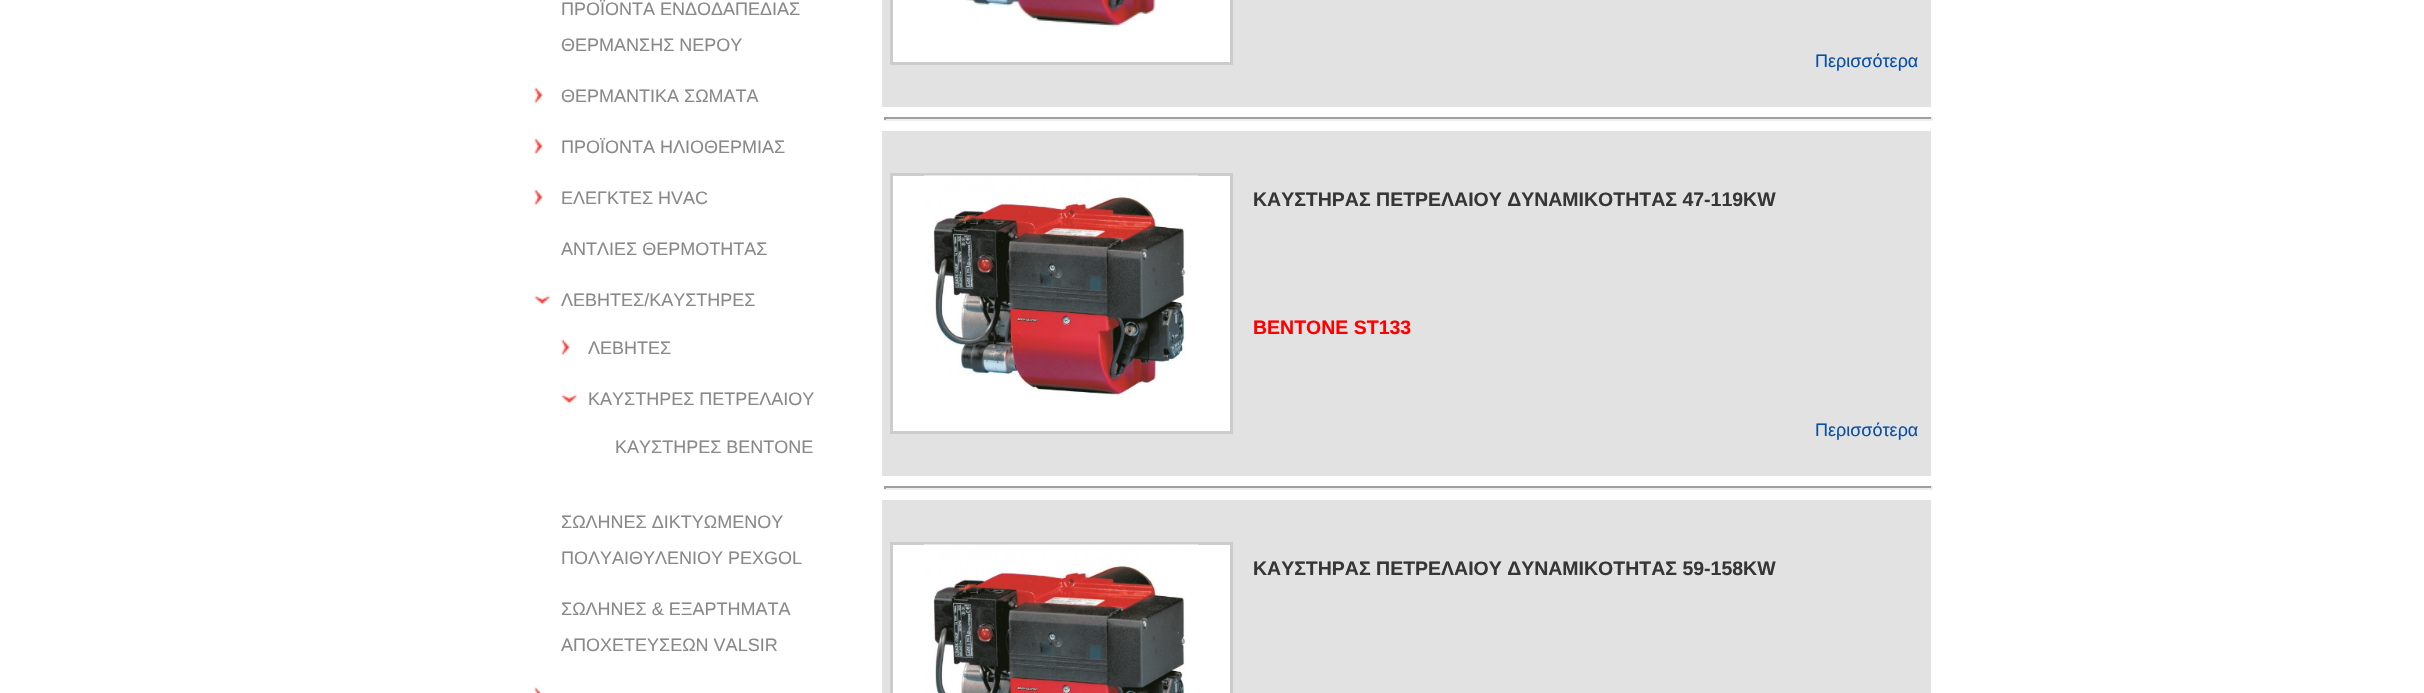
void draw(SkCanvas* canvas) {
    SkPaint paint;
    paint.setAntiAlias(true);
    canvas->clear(0xFFFFFFFF);
    SkFont font1(fontMgr->matchFamilyStyle("Liberation Sans", SkFontStyle::Normal()), 18);
    font1.setSubpixel(true);
    paint.setColor(0xFF898989);
    canvas->drawString("ΠΡΟΪΟΝΤΑ ΕΝΔΟΔΑΠΕΔΙΑΣ", 561, 15, font1, paint);
    canvas->drawString("ΘΕΡΜΑΝΣΗΣ ΝΕΡΟΥ", 561, 51, font1, paint);
    canvas->drawImageRect(SkImages::DeferredFromEncodedData(SkData::MakeFromFileName("img1.png")), SkRect::MakeXYWH(534, 87, 9, 17), SkSamplingOptions());
    canvas->drawString("ΘΕΡΜΑΝΤΙΚΑ ΣΩΜΑΤΑ", 561, 102, font1, paint);
    canvas->drawImageRect(SkImages::DeferredFromEncodedData(SkData::MakeFromFileName("img1.png")), SkRect::MakeXYWH(534, 138, 9, 17), SkSamplingOptions());
    canvas->drawString("ΠΡΟΪΟΝΤΑ ΗΛΙΟΘΕΡΜΙΑΣ", 561, 153, font1, paint);
    canvas->drawImageRect(SkImages::DeferredFromEncodedData(SkData::MakeFromFileName("img1.png")), SkRect::MakeXYWH(534, 189, 9, 17), SkSamplingOptions());
    canvas->drawString("ΕΛΕΓΚΤΕΣ HVAC", 561, 204, font1, paint);
    canvas->drawString("ΑΝΤΛΙΕΣ ΘΕΡΜΟΤΗΤΑΣ", 561, 255, font1, paint);
    canvas->drawImageRect(SkImages::DeferredFromEncodedData(SkData::MakeFromFileName("img2.png")), SkRect::MakeXYWH(534, 295, 17, 10), SkSamplingOptions());
    canvas->drawString("ΛΕΒΗΤΕΣ/ΚΑΥΣΤΗΡΕΣ", 561, 306, font1, paint);
    canvas->drawImageRect(SkImages::DeferredFromEncodedData(SkData::MakeFromFileName("img3.png")), SkRect::MakeXYWH(561, 339, 9, 17), SkSamplingOptions());
    canvas->drawString("ΛΕΒΗΤΕΣ", 588, 354, font1, paint);
    canvas->drawImageRect(SkImages::DeferredFromEncodedData(SkData::MakeFromFileName("img4.png")), SkRect::MakeXYWH(561, 394, 17, 10), SkSamplingOptions());
    canvas->drawString("ΚΑΥΣΤΗΡΕΣ ΠΕΤΡΕΛΑΙΟΥ", 588, 405, font1, paint);
    canvas->drawString("ΚΑΥΣΤΗΡΕΣ BENTONE", 615, 453, font1, paint);
    canvas->drawString("ΣΩΛΗΝΕΣ ΔΙΚΤΥΩΜΕΝΟΥ", 561, 528, font1, paint);
    canvas->drawString("ΠΟΛΥΑΙΘΥΛΕΝΙΟΥ PEXGOL", 561, 564, font1, paint);
    canvas->drawString("ΣΩΛΗΝΕΣ & ΕΞΑΡΤΗΜΑΤΑ", 561, 615, font1, paint);
    canvas->drawString("ΑΠΟΧΕΤΕΥΣΕΩΝ VALSIR", 561, 651, font1, paint);
    canvas->drawImageRect(SkImages::DeferredFromEncodedData(SkData::MakeFromFileName("img5.png")), SkRect::MakeXYWH(534, 687, 8, 6), SkSamplingOptions());
    paint.setColor(0xFFE2E2E2);
    canvas->drawRect(SkRect::MakeXYWH(882, 0, 359, 107), paint);
    paint.setColor(0xFFFFFFFF);
    canvas->drawRect(SkRect::MakeXYWH(891.5f, -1.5f, 340, 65), paint);
    paint.setStyle(SkPaint::kStroke_Style);
    paint.setStrokeWidth(3);
    paint.setColor(0xFFCCCCCC);
    canvas->drawRect(SkRect::MakeXYWH(891.5f, -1.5f, 340, 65), paint);
    canvas->drawImageRect(SkImages::DeferredFromEncodedData(SkData::MakeFromFileName("img6.png")), SkRect::MakeXYWH(965, 0, 191, 27), SkSamplingOptions());
    paint.setStyle(SkPaint::kFill_Style);
    paint.setColor(0xFFE2E2E2);
    canvas->drawRect(SkRect::MakeXYWH(1241, 0, 690, 107), paint);
    paint.setColor(0xFF094FA3);
    canvas->drawString("Περισσότερα", 1815, 67, font1, paint);
    paint.setColor(0xFF9F9F9F);
    canvas->drawRect(SkRect::MakeXYWH(884, 117, 1048, 2), paint);
    paint.setColor(0xFFEEEEEE);
    canvas->drawRect(SkRect::MakeXYWH(1931, 117, 2, 3), paint);
    canvas->drawRect(SkRect::MakeXYWH(884, 119, 1048, 2), paint);
    paint.setColor(0xFF9F9F9F);
    canvas->drawRect(SkRect::MakeXYWH(884, 117, 2, 3), paint);
    paint.setColor(0xFFE2E2E2);
    canvas->drawRect(SkRect::MakeXYWH(882, 131, 359, 345), paint);
    paint.setColor(0xFFFFFFFF);
    canvas->drawRect(SkRect::MakeXYWH(891.5f, 174.5f, 340, 258), paint);
    paint.setStyle(SkPaint::kStroke_Style);
    paint.setColor(0xFFCCCCCC);
    canvas->drawRect(SkRect::MakeXYWH(891.5f, 174.5f, 340, 258), paint);
    canvas->drawImageRect(SkImages::DeferredFromEncodedData(SkData::MakeFromFileName("img7.png")), SkRect::MakeXYWH(924, 175, 275, 222), SkSamplingOptions());
    paint.setStyle(SkPaint::kFill_Style);
    paint.setColor(0xFFE2E2E2);
    canvas->drawRect(SkRect::MakeXYWH(1241, 131, 690, 345), paint);
    SkFont font2(fontMgr->matchFamilyStyle("Liberation Sans", SkFontStyle::Bold()), 19.5f);
    font2.setSubpixel(true);
    paint.setColor(0xFF363636);
    canvas->drawString("ΚΑΥΣΤΗΡΑΣ ΠΕΤΡΕΛΑΙΟΥ ΔΥΝΑΜΙΚΟΤΗΤΑΣ 47-119KW", 1253, 206, font2, paint);
    paint.setColor(0xFFFF0000);
    canvas->drawString("BENTONE ST133", 1253, 334, font2, paint);
    paint.setColor(0xFF094FA3);
    canvas->drawString("Περισσότερα", 1815, 436, font1, paint);
    paint.setColor(0xFF9F9F9F);
    canvas->drawRect(SkRect::MakeXYWH(884, 486, 1048, 2), paint);
    paint.setColor(0xFFEEEEEE);
    canvas->drawRect(SkRect::MakeXYWH(1931, 486, 2, 3), paint);
    canvas->drawRect(SkRect::MakeXYWH(884, 488, 1048, 2), paint);
    paint.setColor(0xFF9F9F9F);
    canvas->drawRect(SkRect::MakeXYWH(884, 486, 2, 3), paint);
    paint.setColor(0xFFE2E2E2);
    canvas->drawRect(SkRect::MakeXYWH(882, 500, 359, 193), paint);
    paint.setColor(0xFFFFFFFF);
    canvas->drawRect(SkRect::MakeXYWH(891.5f, 543.5f, 340, 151), paint);
    paint.setStyle(SkPaint::kStroke_Style);
    paint.setColor(0xFFCCCCCC);
    canvas->drawRect(SkRect::MakeXYWH(891.5f, 543.5f, 340, 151), paint);
    canvas->drawImageRect(SkImages::DeferredFromEncodedData(SkData::MakeFromFileName("img8.png")), SkRect::MakeXYWH(924, 544, 275, 149), SkSamplingOptions());
    paint.setStyle(SkPaint::kFill_Style);
    paint.setColor(0xFFE2E2E2);
    canvas->drawRect(SkRect::MakeXYWH(1241, 500, 690, 193), paint);
    paint.setColor(0xFF363636);
    canvas->drawString("ΚΑΥΣΤΗΡΑΣ ΠΕΤΡΕΛΑΙΟΥ ΔΥΝΑΜΙΚΟΤΗΤΑΣ 59-158KW", 1253, 575, font2, paint);
}
